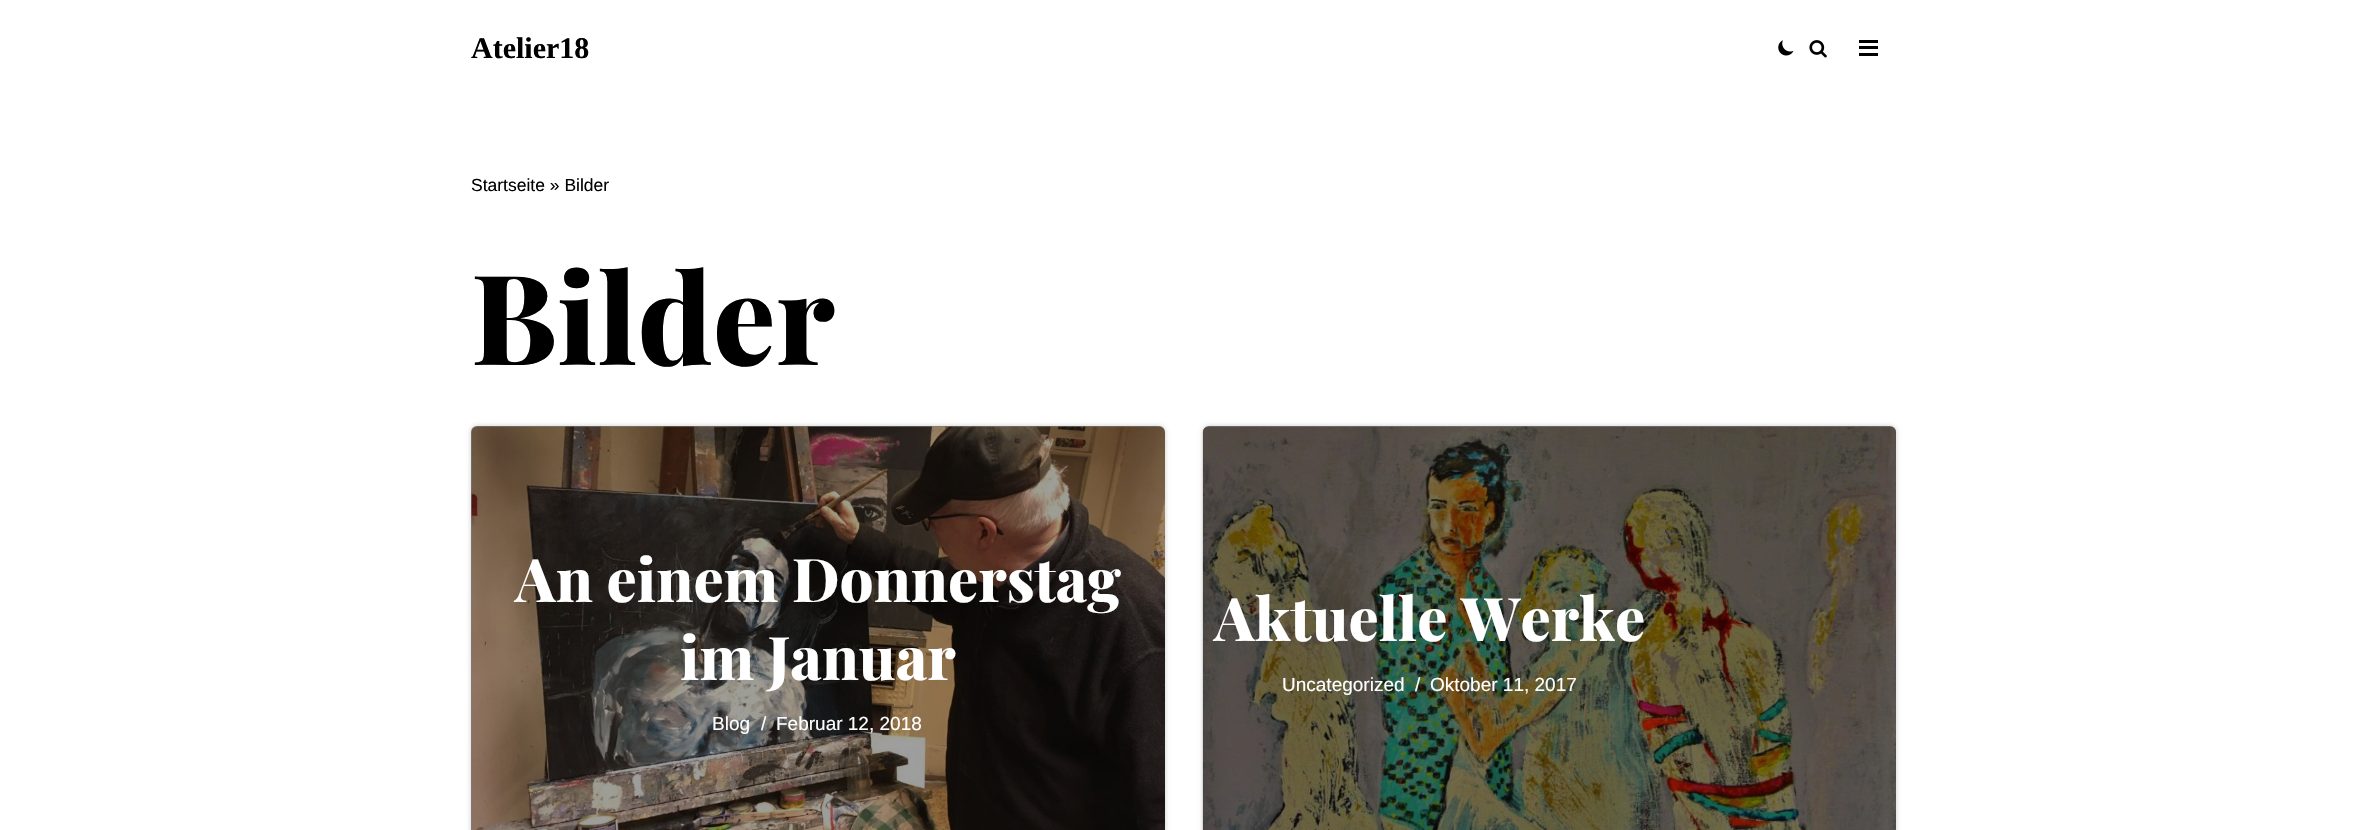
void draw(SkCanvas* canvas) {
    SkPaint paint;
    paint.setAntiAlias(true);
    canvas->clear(0xFFFFFFFF);
    SkFont font1(fontMgr->matchFamilyStyle("Liberation Serif", SkFontStyle::Bold()), 30);
    font1.setSubpixel(true);
    paint.setColor(0xFF000000);
    canvas->drawString("Atelier18", 471, 58, font1, paint);
    canvas->drawImageRect(SkImages::DeferredFromEncodedData(SkData::MakeFromFileName("img1.png")), SkRect::MakeXYWH(1778, 40, 16, 16), SkSamplingOptions());
    canvas->drawImageRect(SkImages::DeferredFromEncodedData(SkData::MakeFromFileName("img2.png")), SkRect::MakeXYWH(1809, 40, 18, 18), SkSamplingOptions());
    canvas->drawRect(SkRect::MakeXYWH(1859, 40, 19, 3), paint);
    canvas->drawRect(SkRect::MakeXYWH(1859, 46, 19, 3), paint);
    canvas->drawRect(SkRect::MakeXYWH(1859, 53, 19, 3), paint);
    SkFont font2(fontMgr->matchFamilyStyle("Liberation Sans", SkFontStyle::Normal()), 17.5f);
    font2.setSubpixel(true);
    canvas->drawString("Startseite » Bilder", 471, 191, font2, paint);
    SkFont font3(fontMgr->matchFamilyStyle("Playfair Display", SkFontStyle(800, SkFontStyle::kNormal_Width, SkFontStyle::kUpright_Slant)), 125);
    font3.setSubpixel(true);
    canvas->drawString("Bilder", 471, 365, font3, paint);
    paint.setColor(0x33000000);
    paint.setMaskFilter(SkMaskFilter::MakeBlur(kNormal_SkBlurStyle, 2.5f));
    canvas->drawRoundRect(SkRect::MakeXYWH(471, 426, 694, 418), 6, 6, paint);
    paint.setMaskFilter(nullptr);
    canvas->save();
    canvas->clipPath(SkPathBuilder().moveTo(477, 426).lineTo(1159, 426).cubicTo(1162.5f, 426, 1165, 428.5f, 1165, 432).lineTo(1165, 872).cubicTo(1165, 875.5f, 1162.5f, 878, 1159, 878).lineTo(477, 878).cubicTo(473.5f, 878, 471, 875.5f, 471, 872).lineTo(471, 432).cubicTo(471, 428.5f, 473.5f, 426, 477, 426).close().detach(), true);
    paint.setMaskFilter(SkMaskFilter::MakeBlur(kNormal_SkBlurStyle, 2.5f));
    canvas->drawRoundRect(SkRect::MakeXYWH(471, 426, 694, 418), 6, 6, paint);
    paint.setMaskFilter(nullptr);
    canvas->restore();
    canvas->drawImageRect(SkImages::DeferredFromEncodedData(SkData::MakeFromFileName("img3.png")), SkRect::MakeXYWH(471, 426, 694, 404), SkSamplingOptions());
    paint.setColor(0x61000000);
    canvas->drawRoundRect(SkRect::MakeXYWH(471, 426, 694, 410), 6, 6, paint);
    SkFont font4(fontMgr->matchFamilyStyle("Playfair Display", SkFontStyle(800, SkFontStyle::kNormal_Width, SkFontStyle::kUpright_Slant)), 60);
    font4.setSubpixel(true);
    paint.setColor(0xFFFFFFFF);
    canvas->drawString("An einem Donnerstag", 515, 602, font4, paint);
    canvas->drawString("im Januar", 680, 680, font4, paint);
    SkFont font5(fontMgr->matchFamilyStyle("Liberation Sans", SkFontStyle::Normal()), 19);
    font5.setSubpixel(true);
    canvas->drawString("Blog", 712, 730, font5, paint);
    canvas->drawString("/", 761, 730, font5, paint);
    canvas->drawString("Februar 12, 2018", 776, 730, font5, paint);
    paint.setColor(0x33000000);
    paint.setMaskFilter(SkMaskFilter::MakeBlur(kNormal_SkBlurStyle, 2.5f));
    canvas->drawRoundRect(SkRect::MakeXYWH(1203, 426, 693, 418), 6, 6, paint);
    paint.setMaskFilter(nullptr);
    canvas->save();
    canvas->clipPath(SkPathBuilder().moveTo(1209, 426).lineTo(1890, 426).cubicTo(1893.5f, 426, 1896, 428.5f, 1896, 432).lineTo(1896, 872).cubicTo(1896, 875.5f, 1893.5f, 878, 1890, 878).lineTo(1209, 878).cubicTo(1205.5f, 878, 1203, 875.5f, 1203, 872).lineTo(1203, 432).cubicTo(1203, 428.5f, 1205.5f, 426, 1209, 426).close().detach(), true);
    paint.setMaskFilter(SkMaskFilter::MakeBlur(kNormal_SkBlurStyle, 2.5f));
    canvas->drawRoundRect(SkRect::MakeXYWH(1203, 426, 693, 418), 6, 6, paint);
    paint.setMaskFilter(nullptr);
    canvas->restore();
    canvas->drawImageRect(SkImages::DeferredFromEncodedData(SkData::MakeFromFileName("img4.png")), SkRect::MakeXYWH(1202, 426, 694, 404), SkSamplingOptions());
    paint.setColor(0x61000000);
    canvas->drawRoundRect(SkRect::MakeXYWH(1203, 426, 693, 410), 6, 6, paint);
    paint.setColor(0xFFFFFFFF);
    canvas->drawString("Aktuelle Werke", 1214, 641, font4, paint);
    canvas->drawString("Uncategorized", 1282, 691, font5, paint);
    canvas->drawString("/", 1415, 691, font5, paint);
    canvas->drawString("Oktober 11, 2017", 1430, 691, font5, paint);
}
